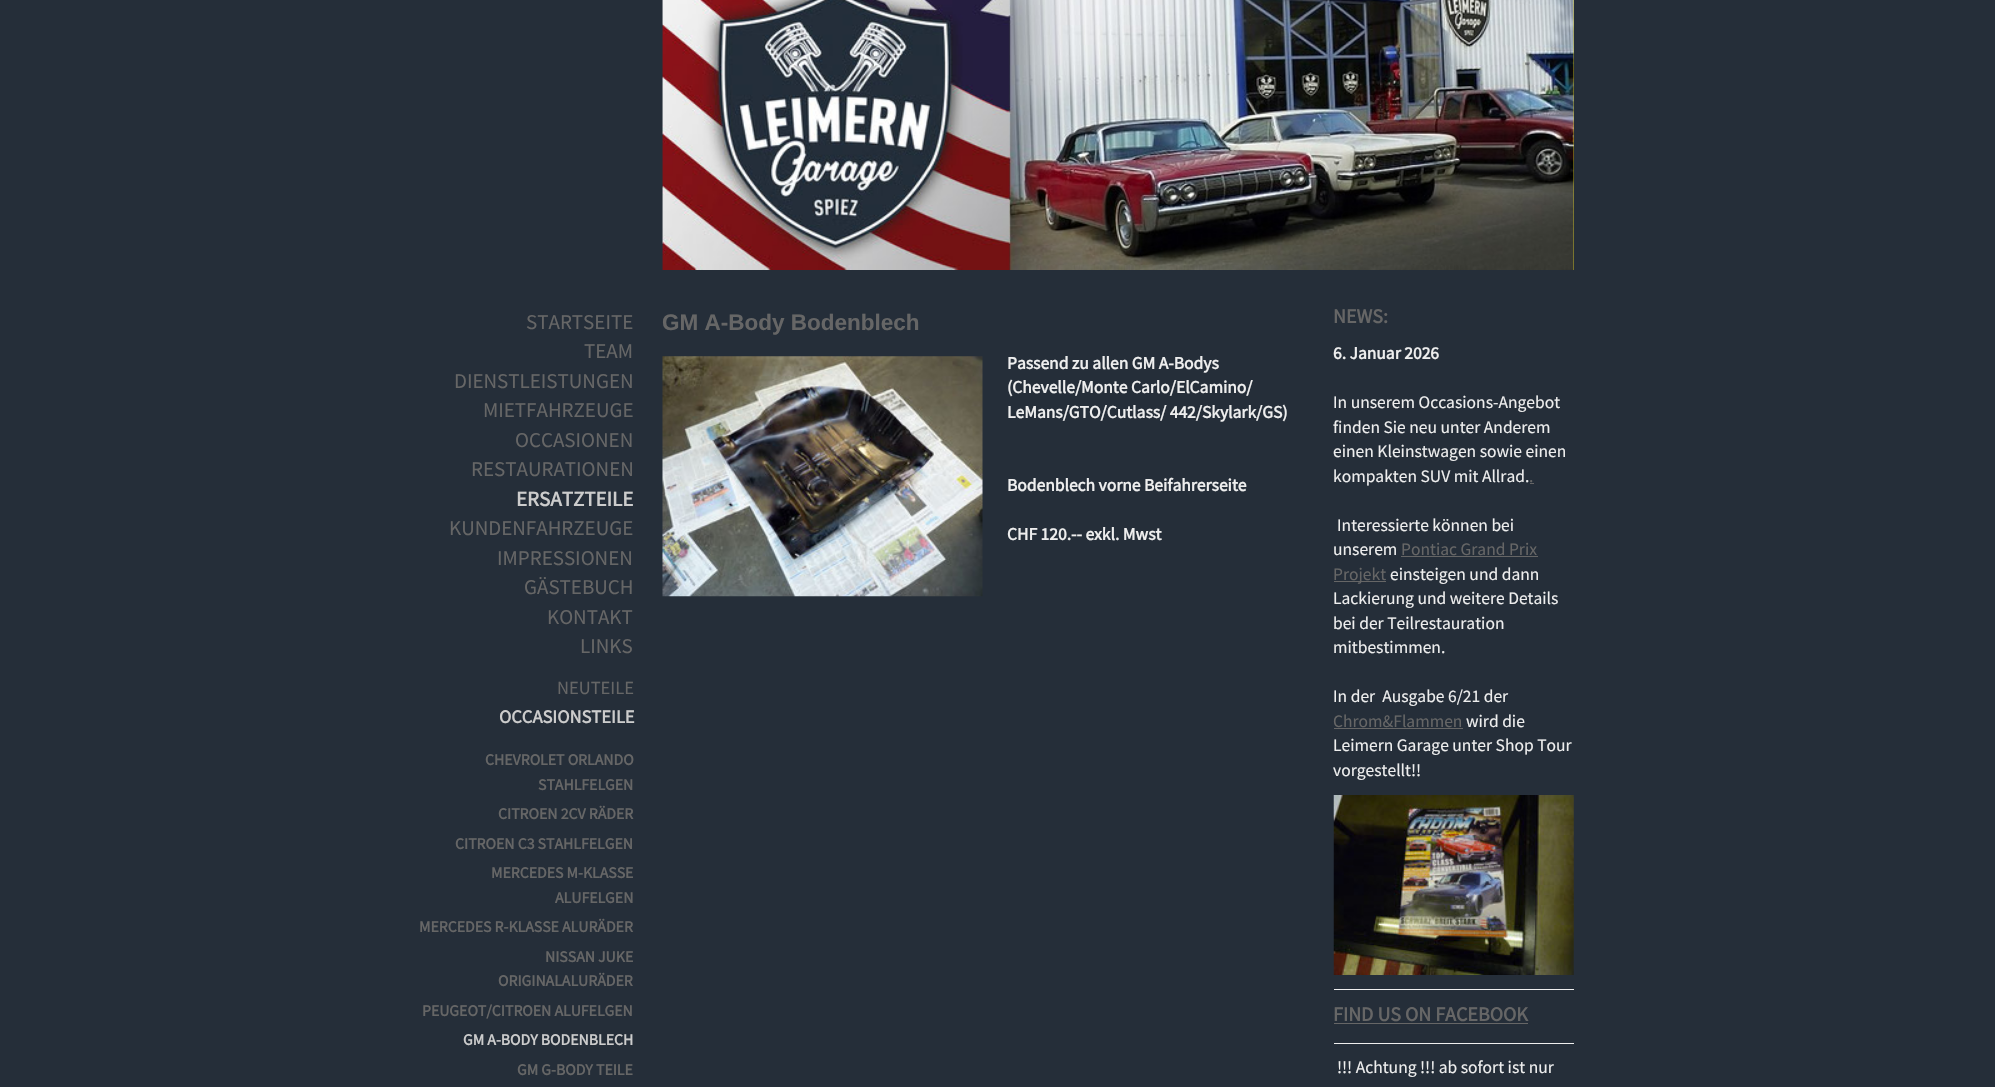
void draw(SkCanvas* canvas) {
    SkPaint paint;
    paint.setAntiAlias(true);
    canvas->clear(0xFF252E39);
    paint.setColor(0xFFCFC228);
    canvas->drawRect(SkRect::MakeXYWH(1573, 0, 1, 270), paint);
    canvas->drawImageRect(SkImages::DeferredFromEncodedData(SkData::MakeFromFileName("img1.png")), SkRect::MakeXYWH(662, 0, 912, 270), SkSamplingOptions());
    canvas->drawImageRect(SkImages::DeferredFromEncodedData(SkData::MakeFromFileName("img2.png")), SkRect::MakeXYWH(662, 0, 347, 270), SkSamplingOptions());
    SkFont font1(fontMgr->matchFamilyStyle("Source Sans Pro", SkFontStyle::Normal()), 21);
    font1.setSubpixel(true);
    paint.setColor(0xFF666666);
    canvas->drawString("STARTSEITE", 526, 329, font1, paint);
    canvas->drawString("TEAM", 584, 358, font1, paint);
    canvas->drawString("DIENSTLEISTUNGEN", 454, 388, font1, paint);
    canvas->drawString("MIETFAHRZEUGE", 483, 417, font1, paint);
    canvas->drawString("OCCASIONEN", 515, 447, font1, paint);
    canvas->drawString("RESTAURATIONEN", 471, 476, font1, paint);
    SkFont font2(fontMgr->matchFamilyStyle("Source Sans Pro", SkFontStyle::Bold()), 21);
    font2.setSubpixel(true);
    paint.setColor(0xFFCCCCCC);
    canvas->drawString("ERSATZTEILE", 516, 506, font2, paint);
    paint.setColor(0xFF666666);
    canvas->drawString("KUNDENFAHRZEUGE", 449, 535, font1, paint);
    canvas->drawString("IMPRESSIONEN", 497, 565, font1, paint);
    canvas->drawString("GÄSTEBUCH", 524, 594, font1, paint);
    canvas->drawString("KONTAKT", 547, 624, font1, paint);
    canvas->drawString("LINKS", 580, 653, font1, paint);
    SkFont font3(fontMgr->matchFamilyStyle("Source Sans Pro", SkFontStyle::Normal()), 18.5f);
    font3.setSubpixel(true);
    canvas->drawString("NEUTEILE", 557, 694, font3, paint);
    SkFont font4(fontMgr->matchFamilyStyle("Source Sans Pro", SkFontStyle::Bold()), 18.5f);
    font4.setSubpixel(true);
    paint.setColor(0xFFCCCCCC);
    canvas->drawString("OCCASIONSTEILE", 499, 723, font4, paint);
    SkFont font5(fontMgr->matchFamilyStyle("Source Sans Pro", SkFontStyle::Bold()), 15.75f);
    font5.setSubpixel(true);
    paint.setColor(0xFF666666);
    canvas->drawString("CHEVROLET ORLANDO", 485, 765, font5, paint);
    canvas->drawString("STAHLFELGEN", 538, 790, font5, paint);
    canvas->drawString("CITROEN 2CV RÄDER", 498, 819, font5, paint);
    canvas->drawString("CITROEN C3 STAHLFELGEN", 455, 849, font5, paint);
    canvas->drawString("MERCEDES M-KLASSE", 491, 878, font5, paint);
    canvas->drawString("ALUFELGEN", 555, 903, font5, paint);
    canvas->drawString("MERCEDES R-KLASSE ALURÄDER", 419, 932, font5, paint);
    canvas->drawString("NISSAN JUKE", 545, 962, font5, paint);
    canvas->drawString("ORIGINALALURÄDER", 498, 986, font5, paint);
    canvas->drawString("PEUGEOT/CITROEN ALUFELGEN", 422, 1016, font5, paint);
    paint.setColor(0xFFCCCCCC);
    canvas->drawString("GM A-BODY BODENBLECH", 463, 1045, font5, paint);
    paint.setColor(0xFF666666);
    canvas->drawString("GM G-BODY TEILE", 517, 1075, font5, paint);
    SkFont font6(fontMgr->matchFamilyStyle("Liberation Sans", SkFontStyle::Bold()), 22.5f);
    font6.setSubpixel(true);
    canvas->drawString("GM A-Body Bodenblech", 662, 330, font6, paint);
    canvas->drawImageRect(SkImages::DeferredFromEncodedData(SkData::MakeFromFileName("img3.png")), SkRect::MakeXYWH(662, 356, 321, 241), SkSamplingOptions());
    SkFont font7(fontMgr->matchFamilyStyle("Source Sans Pro", SkFontStyle::Bold()), 17.5f);
    font7.setSubpixel(true);
    paint.setColor(0xFFEEEEEE);
    canvas->drawString("Passend zu allen GM A-Bodys", 1007, 369, font7, paint);
    canvas->drawString("(Chevelle/Monte Carlo/ElCamino/", 1007, 393, font7, paint);
    canvas->drawString("LeMans/GTO/Cutlass/ 442/Skylark/GS)", 1007, 418, font7, paint);
    canvas->drawString("Bodenblech vorne Beifahrerseite", 1007, 491, font7, paint);
    canvas->drawString("CHF 120.-- exkl. Mwst", 1007, 540, font7, paint);
    SkFont font8(fontMgr->matchFamilyStyle("Source Sans Pro", SkFontStyle::Bold()), 20);
    font8.setSubpixel(true);
    paint.setColor(0xFF666666);
    canvas->drawString("NEWS:", 1333, 323, font8, paint);
    paint.setColor(0xFFEEEEEE);
    canvas->drawString("6. Januar 2026", 1333, 359, font7, paint);
    SkFont font9(fontMgr->matchFamilyStyle("Source Sans Pro", SkFontStyle::Normal()), 17.5f);
    font9.setSubpixel(true);
    canvas->drawString("In unserem Occasions-Angebot", 1333, 408, font9, paint);
    canvas->drawString("finden Sie neu unter Anderem", 1333, 433, font9, paint);
    canvas->drawString("einen Kleinstwagen sowie einen", 1333, 457, font9, paint);
    canvas->drawString("kompakten SUV mit Allrad.", 1333, 482, font9, paint);
    paint.setColor(0xFF666666);
    canvas->drawString(".", 1529, 482, font9, paint);
    canvas->drawRect(SkRect::MakeXYWH(1530, 483, 4, 1), paint);
    paint.setColor(0xFFEEEEEE);
    canvas->drawString("Interessierte können bei", 1337, 531, font9, paint);
    canvas->drawString("unserem", 1333, 555, font9, paint);
    paint.setColor(0xFF666666);
    canvas->drawString("Pontiac Grand Prix", 1401, 555, font9, paint);
    canvas->drawRect(SkRect::MakeXYWH(1401, 556, 137, 1), paint);
    canvas->drawRect(SkRect::MakeXYWH(1334, 581, 52, 1), paint);
    canvas->drawString("Projekt", 1333, 580, font9, paint);
    paint.setColor(0xFFEEEEEE);
    canvas->drawString("einsteigen und dann", 1390, 580, font9, paint);
    canvas->drawString("Lackierung und weitere Details", 1333, 604, font9, paint);
    canvas->drawString("bei der Teilrestauration", 1333, 629, font9, paint);
    canvas->drawString("mitbestimmen.", 1333, 653, font9, paint);
    canvas->drawString("In der  Ausgabe 6/21 der", 1333, 702, font9, paint);
    paint.setColor(0xFF666666);
    canvas->drawString("Chrom&Flammen", 1333, 727, font9, paint);
    canvas->drawRect(SkRect::MakeXYWH(1334, 728, 129, 1), paint);
    paint.setColor(0xFFEEEEEE);
    canvas->drawString("wird die", 1466, 727, font9, paint);
    canvas->drawString("Leimern Garage unter Shop Tour", 1333, 751, font9, paint);
    canvas->drawString("vorgestellt!!", 1333, 776, font9, paint);
    canvas->drawImageRect(SkImages::DeferredFromEncodedData(SkData::MakeFromFileName("img4.png")), SkRect::MakeXYWH(1333, 795, 241, 180), SkSamplingOptions());
    canvas->drawRect(SkRect::MakeXYWH(1334, 989, 240, 1), paint);
    paint.setColor(0xFF666666);
    canvas->drawString("FIND US ON FACEBOOK", 1333, 1021, font8, paint);
    canvas->drawRect(SkRect::MakeXYWH(1334, 1023, 194, 1), paint);
    paint.setColor(0xFFEEEEEE);
    canvas->drawRect(SkRect::MakeXYWH(1334, 1043, 240, 1), paint);
    canvas->drawString("!!! Achtung !!! ab sofort ist nur", 1337, 1073, font9, paint);
}
